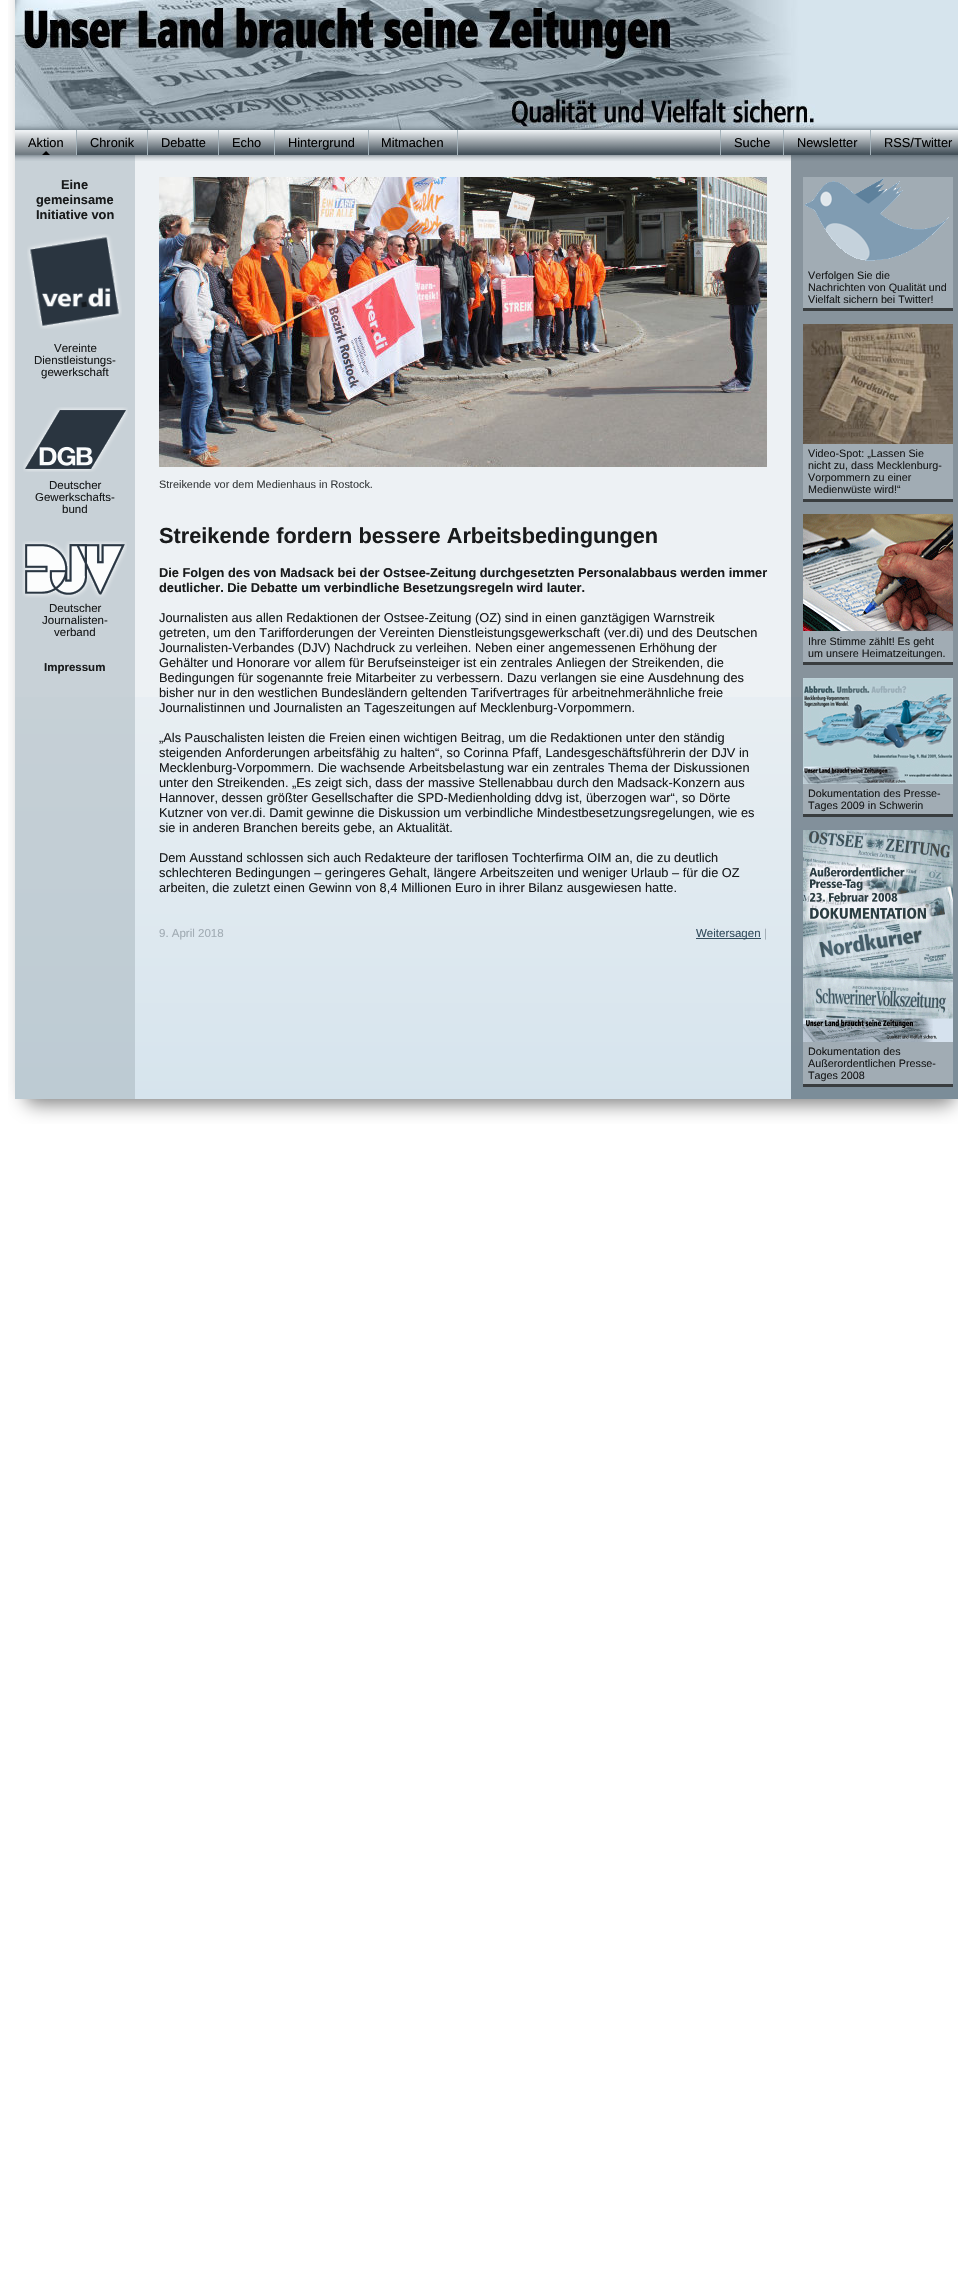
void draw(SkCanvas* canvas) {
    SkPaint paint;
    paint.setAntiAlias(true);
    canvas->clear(0xFFFFFFFF);
    canvas->drawImageRect(SkImages::DeferredFromEncodedData(SkData::MakeFromFileName("img1.png")), SkRect::MakeXYWH(8, 0, 950, 697), SkSamplingOptions());
    canvas->drawImageRect(SkImages::DeferredFromEncodedData(SkData::MakeFromFileName("img2.png")), SkRect::MakeXYWH(15, 0, 943, 130), SkSamplingOptions());
    canvas->drawImageRect(SkImages::DeferredFromEncodedData(SkData::MakeFromFileName("img3.png")), SkRect::MakeXYWH(15, 130, 943, 31), SkSamplingOptions());
    paint.setColor(0xFFA4B2BA);
    canvas->drawRect(SkRect::MakeXYWH(76, 130, 1, 25), paint);
    canvas->drawImageRect(SkImages::DeferredFromEncodedData(SkData::MakeFromFileName("img4.png")), SkRect::MakeXYWH(15, 131, 61, 24), SkSamplingOptions());
    SkFont font1(fontMgr->matchFamilyStyle("Liberation Sans", SkFontStyle::Normal()), 12.8f);
    font1.setSubpixel(true);
    paint.setColor(0xFF000000);
    canvas->drawString("Aktion", 28, 147, font1, paint);
    paint.setColor(0xFFA4B2BA);
    canvas->drawRect(SkRect::MakeXYWH(147, 130, 1, 25), paint);
    paint.setColor(0xFF000000);
    canvas->drawString("Chronik", 90, 147, font1, paint);
    paint.setColor(0xFFA4B2BA);
    canvas->drawRect(SkRect::MakeXYWH(218, 130, 1, 25), paint);
    paint.setColor(0xFF000000);
    canvas->drawString("Debatte", 161, 147, font1, paint);
    paint.setColor(0xFFA4B2BA);
    canvas->drawRect(SkRect::MakeXYWH(274, 130, 1, 25), paint);
    paint.setColor(0xFF000000);
    canvas->drawString("Echo", 232, 147, font1, paint);
    paint.setColor(0xFFA4B2BA);
    canvas->drawRect(SkRect::MakeXYWH(368, 130, 1, 25), paint);
    paint.setColor(0xFF000000);
    canvas->drawString("Hintergrund", 288, 147, font1, paint);
    paint.setColor(0xFFA4B2BA);
    canvas->drawRect(SkRect::MakeXYWH(457, 130, 1, 25), paint);
    paint.setColor(0xFF000000);
    canvas->drawString("Mitmachen", 381, 147, font1, paint);
    paint.setColor(0xFFA4B2BA);
    canvas->drawRect(SkRect::MakeXYWH(720, 130, 1, 25), paint);
    paint.setColor(0xFF000000);
    canvas->drawString("Suche", 734, 147, font1, paint);
    paint.setColor(0xFFA4B2BA);
    canvas->drawRect(SkRect::MakeXYWH(783, 130, 1, 25), paint);
    paint.setColor(0xFF000000);
    canvas->drawString("Newsletter", 797, 147, font1, paint);
    paint.setColor(0xFFA4B2BA);
    canvas->drawRect(SkRect::MakeXYWH(870, 130, 1, 25), paint);
    paint.setColor(0xFF000000);
    canvas->drawString("RSS/Twitter", 884, 147, font1, paint);
    SkFont font2(fontMgr->matchFamilyStyle("Liberation Sans", SkFontStyle::Bold()), 12.8f);
    font2.setSubpixel(true);
    paint.setColor(0xFF181A1B);
    canvas->drawString("Eine", 61, 189, font2, paint);
    canvas->drawString("gemeinsame", 36, 204, font2, paint);
    canvas->drawString("Initiative von", 36, 219, font2, paint);
    canvas->drawImageRect(SkImages::DeferredFromEncodedData(SkData::MakeFromFileName("img5.png")), SkRect::MakeXYWH(27, 234, 95, 95), SkSamplingOptions());
    SkFont font3(fontMgr->matchFamilyStyle("Liberation Sans", SkFontStyle::Normal()), 11.5f);
    font3.setSubpixel(true);
    canvas->drawString("Vereinte", 54, 352, font3, paint);
    canvas->drawString("Dienstleistungs-", 34, 364, font3, paint);
    canvas->drawString("gewerkschaft", 41, 376, font3, paint);
    canvas->drawImageRect(SkImages::DeferredFromEncodedData(SkData::MakeFromFileName("img6.png")), SkRect::MakeXYWH(23, 407, 105, 65), SkSamplingOptions());
    canvas->drawString("Deutscher", 49, 489, font3, paint);
    canvas->drawString("Gewerkschafts-", 35, 501, font3, paint);
    canvas->drawString("bund", 62, 513, font3, paint);
    canvas->drawImageRect(SkImages::DeferredFromEncodedData(SkData::MakeFromFileName("img7.png")), SkRect::MakeXYWH(22, 541, 105, 57), SkSamplingOptions());
    canvas->drawString("Deutscher", 49, 612, font3, paint);
    canvas->drawString("Journalisten-", 42, 624, font3, paint);
    canvas->drawString("verband", 54, 636, font3, paint);
    SkFont font4(fontMgr->matchFamilyStyle("Liberation Sans", SkFontStyle::Bold()), 11.5f);
    font4.setSubpixel(true);
    canvas->drawString("Impressum", 44, 671, font4, paint);
    canvas->drawImageRect(SkImages::DeferredFromEncodedData(SkData::MakeFromFileName("img8.png")), SkRect::MakeXYWH(159, 177, 608, 290), SkSamplingOptions());
    SkFont font5(fontMgr->matchFamilyStyle("Liberation Sans", SkFontStyle::Normal()), 10.9f);
    font5.setSubpixel(true);
    paint.setColor(0xFF393D3F);
    canvas->drawString("Streikende vor dem Medienhaus in Rostock.", 159, 488, font5, paint);
    SkFont font6(fontMgr->matchFamilyStyle("Liberation Sans", SkFontStyle::Bold()), 21.75f);
    font6.setSubpixel(true);
    paint.setColor(0xFF181A1B);
    canvas->drawString("Streikende fordern bessere Arbeitsbedingungen", 159, 543, font6, paint);
    canvas->drawString("Die Folgen des von Madsack bei der Ostsee-Zeitung durchgesetzten Personalabbaus werden immer", 159, 577, font2, paint);
    canvas->drawString("deutlicher. Die Debatte um verbindliche Besetzungsregeln wird lauter.", 159, 592, font2, paint);
    canvas->drawString("Journalisten aus allen Redaktionen der Ostsee-Zeitung (OZ) sind in einen ganztägigen Warnstreik", 159, 622, font1, paint);
    canvas->drawString("getreten, um den Tarifforderungen der Vereinten Dienstleistungsgewerkschaft (ver.di) und des Deutschen", 159, 637, font1, paint);
    canvas->drawString("Journalisten-Verbandes (DJV) Nachdruck zu verleihen. Neben einer angemessenen Erhöhung der", 159, 652, font1, paint);
    canvas->drawString("Gehälter und Honorare vor allem für Berufseinsteiger ist ein zentrales Anliegen der Streikenden, die", 159, 667, font1, paint);
    canvas->drawString("Bedingungen für sogenannte freie Mitarbeiter zu verbessern. Dazu verlangen sie eine Ausdehnung des", 159, 682, font1, paint);
    canvas->drawImageRect(SkImages::DeferredFromEncodedData(SkData::MakeFromFileName("img14.png")), SkRect::MakeXYWH(8, 697, 950, 427), SkSamplingOptions());
    canvas->drawString("bisher nur in den westlichen Bundesländern geltenden Tarifvertrages für arbeitnehmerähnliche freie", 159, 697, font1, paint);
    canvas->drawString("Journalistinnen und Journalisten an Tageszeitungen auf Mecklenburg-Vorpommern.", 159, 712, font1, paint);
    canvas->drawString("„Als Pauschalisten leisten die Freien einen wichtigen Beitrag, um die Redaktionen unter den ständig", 159, 742, font1, paint);
    canvas->drawString("steigenden Anforderungen arbeitsfähig zu halten“, so Corinna Pfaff, Landesgeschäftsführerin der DJV in", 159, 757, font1, paint);
    canvas->drawString("Mecklenburg-Vorpommern. Die wachsende Arbeitsbelastung war ein zentrales Thema der Diskussionen", 159, 772, font1, paint);
    canvas->drawString("unter den Streikenden. „Es zeigt sich, dass der massive Stellenabbau durch den Madsack-Konzern aus", 159, 787, font1, paint);
    canvas->drawString("Hannover, dessen größter Gesellschafter die SPD-Medienholding ddvg ist, überzogen war“, so Dörte", 159, 802, font1, paint);
    canvas->drawString("Kutzner von ver.di. Damit gewinne die Diskussion um verbindliche Mindestbesetzungsregelungen, wie es", 159, 817, font1, paint);
    canvas->drawString("sie in anderen Branchen bereits gebe, an Aktualität.", 159, 832, font1, paint);
    canvas->drawString("Dem Ausstand schlossen sich auch Redakteure der tariflosen Tochterfirma OIM an, die zu deutlich", 159, 862, font1, paint);
    canvas->drawString("schlechteren Bedingungen – geringeres Gehalt, längere Arbeitszeiten und weniger Urlaub – für die OZ", 159, 877, font1, paint);
    canvas->drawString("arbeiten, die zuletzt einen Gewinn von 8,4 Millionen Euro in ihrer Bilanz ausgewiesen hatte.", 159, 892, font1, paint);
    paint.setColor(0xFFA1ACB4);
    canvas->drawString("9. April 2018", 159, 937, font3, paint);
    paint.setColor(0xFF334D5E);
    canvas->drawRect(SkRect::MakeXYWH(696, 938, 65, 1), paint);
    canvas->drawString("Weitersagen", 696, 937, font3, paint);
    paint.setColor(0xFFA1ACB4);
    canvas->drawString("|", 764, 937, font3, paint);
    canvas->drawRect(SkRect::MakeXYWH(803, 177, 150, 131), paint);
    paint.setColor(0xFF393D3F);
    canvas->drawRect(SkRect::MakeXYWH(803, 308, 150, 3), paint);
    canvas->drawImageRect(SkImages::DeferredFromEncodedData(SkData::MakeFromFileName("img9.png")), SkRect::MakeXYWH(805, 178, 144, 83), SkSamplingOptions());
    SkFont font7(fontMgr->matchFamilyStyle("Liberation Sans", SkFontStyle::Normal()), 10.75f);
    font7.setSubpixel(true);
    paint.setColor(0xFF181A1B);
    canvas->drawString("Verfolgen Sie die", 808, 279, font7, paint);
    canvas->drawString("Nachrichten von Qualität und", 808, 291, font7, paint);
    canvas->drawString("Vielfalt sichern bei Twitter!", 808, 303, font7, paint);
    paint.setColor(0xFFA1ACB4);
    canvas->drawRect(SkRect::MakeXYWH(803, 444, 150, 55), paint);
    paint.setColor(0xFF393D3F);
    canvas->drawRect(SkRect::MakeXYWH(803, 499, 150, 3), paint);
    canvas->drawImageRect(SkImages::DeferredFromEncodedData(SkData::MakeFromFileName("img10.png")), SkRect::MakeXYWH(803, 324, 150, 120), SkSamplingOptions());
    paint.setColor(0xFF181A1B);
    canvas->drawString("Video-Spot: „Lassen Sie", 808, 457, font7, paint);
    canvas->drawString("nicht zu, dass Mecklenburg-", 808, 469, font7, paint);
    canvas->drawString("Vorpommern zu einer", 808, 481, font7, paint);
    canvas->drawString("Medienwüste wird!“", 808, 493, font7, paint);
    paint.setColor(0xFFA1ACB4);
    canvas->drawRect(SkRect::MakeXYWH(803, 631, 150, 31), paint);
    paint.setColor(0xFF393D3F);
    canvas->drawRect(SkRect::MakeXYWH(803, 662, 150, 3), paint);
    canvas->drawImageRect(SkImages::DeferredFromEncodedData(SkData::MakeFromFileName("img11.png")), SkRect::MakeXYWH(803, 514, 150, 117), SkSamplingOptions());
    paint.setColor(0xFF181A1B);
    canvas->drawString("Ihre Stimme zählt! Es geht", 808, 645, font7, paint);
    canvas->drawString("um unsere Heimatzeitungen.", 808, 657, font7, paint);
    paint.setColor(0xFFA1ACB4);
    canvas->drawRect(SkRect::MakeXYWH(803, 784, 150, 30), paint);
    paint.setColor(0xFF393D3F);
    canvas->drawRect(SkRect::MakeXYWH(803, 814, 150, 3), paint);
    canvas->drawImageRect(SkImages::DeferredFromEncodedData(SkData::MakeFromFileName("img12.png")), SkRect::MakeXYWH(803, 678, 150, 106), SkSamplingOptions());
    paint.setColor(0xFF181A1B);
    canvas->drawString("Dokumentation des Presse-", 808, 797, font7, paint);
    canvas->drawString("Tages 2009 in Schwerin", 808, 809, font7, paint);
    paint.setColor(0xFFA1ACB4);
    canvas->drawRect(SkRect::MakeXYWH(803, 1042, 150, 42), paint);
    paint.setColor(0xFF393D3F);
    canvas->drawRect(SkRect::MakeXYWH(803, 1084, 150, 3), paint);
    canvas->drawImageRect(SkImages::DeferredFromEncodedData(SkData::MakeFromFileName("img13.png")), SkRect::MakeXYWH(803, 830, 150, 212), SkSamplingOptions());
    paint.setColor(0xFF181A1B);
    canvas->drawString("Dokumentation des", 808, 1055, font7, paint);
    canvas->drawString("Außerordentlichen Presse-", 808, 1067, font7, paint);
    canvas->drawString("Tages 2008", 808, 1079, font7, paint);
}
